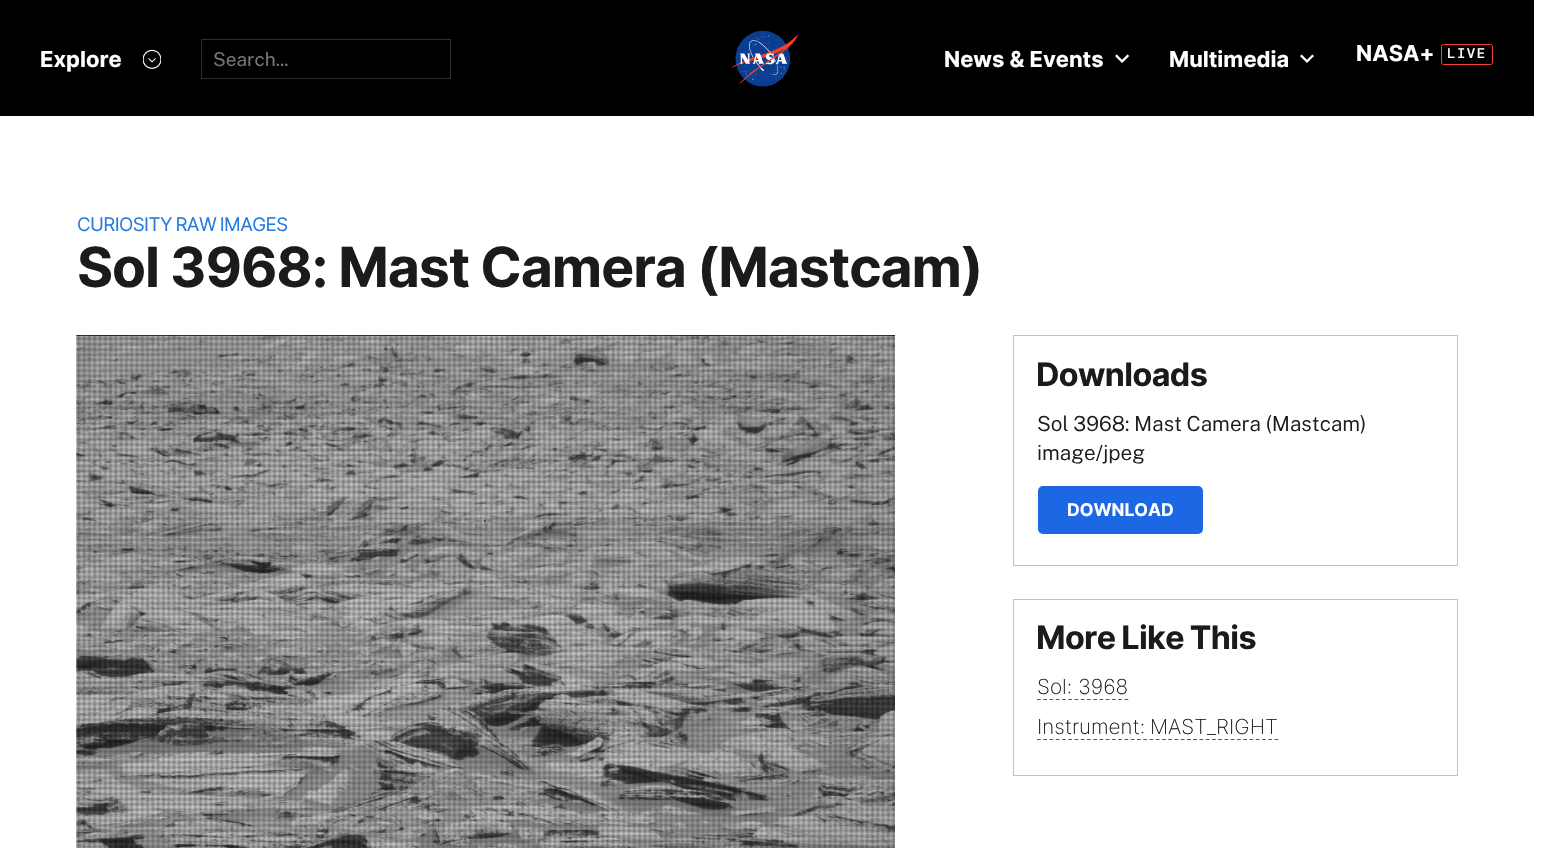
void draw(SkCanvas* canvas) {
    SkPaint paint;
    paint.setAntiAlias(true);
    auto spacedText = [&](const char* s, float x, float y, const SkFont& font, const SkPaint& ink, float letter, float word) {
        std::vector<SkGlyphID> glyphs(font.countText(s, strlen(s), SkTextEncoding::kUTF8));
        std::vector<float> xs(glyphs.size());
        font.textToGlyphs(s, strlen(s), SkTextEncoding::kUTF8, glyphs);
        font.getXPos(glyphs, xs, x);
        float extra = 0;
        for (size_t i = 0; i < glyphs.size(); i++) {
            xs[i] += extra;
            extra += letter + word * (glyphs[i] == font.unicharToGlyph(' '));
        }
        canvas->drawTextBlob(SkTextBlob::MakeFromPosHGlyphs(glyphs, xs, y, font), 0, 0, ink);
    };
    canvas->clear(0xFFFFFFFF);
    paint.setColor(0xFF000000);
    canvas->drawRect(SkRect::MakeXYWH(0, 0, 1534, 116), paint);
    SkFont font1(fontMgr->matchFamilyStyle("Inter", SkFontStyle::Bold()), 22);
    font1.setSubpixel(true);
    paint.setColor(0xFFFFFFFF);
    canvas->drawString("Explore", 40, 67, font1, paint);
    canvas->drawImageRect(SkImages::DeferredFromEncodedData(SkData::MakeFromFileName("img1.png")), SkRect::MakeXYWH(143, 49, 18, 20), SkSamplingOptions());
    paint.setStyle(SkPaint::kStroke_Style);
    paint.setStrokeWidth(1);
    paint.setColor(0xFF2E2E32);
    canvas->drawRect(SkRect::MakeXYWH(201.5f, 39.5f, 249, 39), paint);
    SkFont font2(fontMgr->matchFamilyStyle("Public Sans", SkFontStyle::Normal()), 19);
    font2.setSubpixel(true);
    paint.setStyle(SkPaint::kFill_Style);
    paint.setColor(0xFF757575);
    canvas->drawString("Search...", 213, 66, font2, paint);
    canvas->drawImageRect(SkImages::DeferredFromEncodedData(SkData::MakeFromFileName("img2.png")), SkRect::MakeXYWH(732, 30, 67, 57), SkSamplingOptions());
    paint.setColor(0xFFFFFFFF);
    canvas->drawString("News & Events", 944, 67, font1, paint);
    canvas->drawImageRect(SkImages::DeferredFromEncodedData(SkData::MakeFromFileName("img3.png")), SkRect::MakeXYWH(1115, 54, 14, 9), SkSamplingOptions());
    canvas->drawString("Multimedia", 1169, 67, font1, paint);
    canvas->drawImageRect(SkImages::DeferredFromEncodedData(SkData::MakeFromFileName("img4.png")), SkRect::MakeXYWH(1300, 54, 14, 9), SkSamplingOptions());
    canvas->drawString("NASA+", 1356, 61, font1, paint);
    paint.setStyle(SkPaint::kStroke_Style);
    paint.setColor(0xFFF64137);
    canvas->drawRoundRect(SkRect::MakeXYWH(1441.5f, 44.5f, 51, 20), 2, 2, paint);
    SkFont font3(fontMgr->matchFamilyStyle("DM Mono", SkFontStyle(500, SkFontStyle::kNormal_Width, SkFontStyle::kUpright_Slant)), 14);
    font3.setSubpixel(true);
    paint.setStyle(SkPaint::kFill_Style);
    paint.setColor(0xFFFFFFFF);
    spacedText("LIVE", 1447, 58, font3, paint, 1.5f, 0);
    SkFont font4(fontMgr->matchFamilyStyle("Inter", SkFontStyle::Normal()), 18.75f);
    font4.setSubpixel(true);
    paint.setColor(0xFF257CDF);
    spacedText("CURIOSITY RAW IMAGES", 77, 231, font4, paint, -0.6f, -1);
    SkFont font5(fontMgr->matchFamilyStyle("Inter", SkFontStyle::Bold()), 55.3f);
    font5.setSubpixel(true);
    paint.setColor(0xFF1B1B1B);
    spacedText("Sol 3968: Mast Camera (Mastcam)", 77, 287, font5, paint, -1.1f, -0.5f);
    canvas->drawImageRect(SkImages::DeferredFromEncodedData(SkData::MakeFromFileName("img5.png")), SkRect::MakeXYWH(76, 335, 819, 513), SkSamplingOptions());
    paint.setStyle(SkPaint::kStroke_Style);
    paint.setColor(0xFFC1C1C1);
    canvas->drawRect(SkRect::MakeXYWH(1013.5f, 335.5f, 444, 230), paint);
    SkFont font6(fontMgr->matchFamilyStyle("Inter", SkFontStyle::Bold()), 32.25f);
    font6.setSubpixel(true);
    paint.setStyle(SkPaint::kFill_Style);
    paint.setColor(0xFF1B1B1B);
    spacedText("Downloads", 1036, 386, font6, paint, -0.6f, 0);
    SkFont font7(fontMgr->matchFamilyStyle("Public Sans", SkFontStyle(300, SkFontStyle::kNormal_Width, SkFontStyle::kUpright_Slant)), 20.75f);
    font7.setSubpixel(true);
    spacedText("Sol 3968: Mast Camera (Mastcam)", 1037, 431, font7, paint, 0, -0.5f);
    canvas->drawString("image/jpeg", 1037, 460, font7, paint);
    paint.setColor(0xFF1C67E3);
    canvas->drawRoundRect(SkRect::MakeXYWH(1038, 486, 165, 48), 5, 5, paint);
    SkFont font8(fontMgr->matchFamilyStyle("Inter", SkFontStyle::Bold()), 17.5f);
    font8.setSubpixel(true);
    paint.setColor(0xFFFFFFFF);
    canvas->drawString("DOWNLOAD", 1067, 516, font8, paint);
    paint.setStyle(SkPaint::kStroke_Style);
    paint.setColor(0xFFC1C1C1);
    canvas->drawRect(SkRect::MakeXYWH(1013.5f, 599.5f, 444, 176), paint);
    paint.setStyle(SkPaint::kFill_Style);
    paint.setColor(0xFF1B1B1B);
    spacedText("More Like This", 1036, 649, font6, paint, -0.6f, -1);
    SkFont font9(fontMgr->matchFamilyStyle("Inter", SkFontStyle(200, SkFontStyle::kNormal_Width, SkFontStyle::kUpright_Slant)), 20.75f);
    font9.setSubpixel(true);
    canvas->drawString("Sol: 3968", 1037, 694, font9, paint);
    paint.setStyle(SkPaint::kStroke_Style);
    paint.setStrokeWidth(1.2f);
    paint.setColor(0xFF58585B);
    paint.setPathEffect(SkDashPathEffect::Make({{3.75f, 2.5f}}, 0));
    canvas->drawPath(SkPathBuilder().moveTo(1037, 699.5f).lineTo(1128.5f, 699.5f).detach(), paint);
    paint.setPathEffect(nullptr);
    paint.setStyle(SkPaint::kFill_Style);
    paint.setColor(0xFF1B1B1B);
    spacedText("Instrument: MAST_RIGHT", 1037, 734, font9, paint, 0, -1);
    paint.setStyle(SkPaint::kStroke_Style);
    paint.setColor(0xFF58585B);
    paint.setPathEffect(SkDashPathEffect::Make({{3.75f, 2.5f}}, 0));
    canvas->drawPath(SkPathBuilder().moveTo(1037, 739.5f).lineTo(1278.5f, 739.5f).detach(), paint);
    paint.setPathEffect(nullptr);
}
